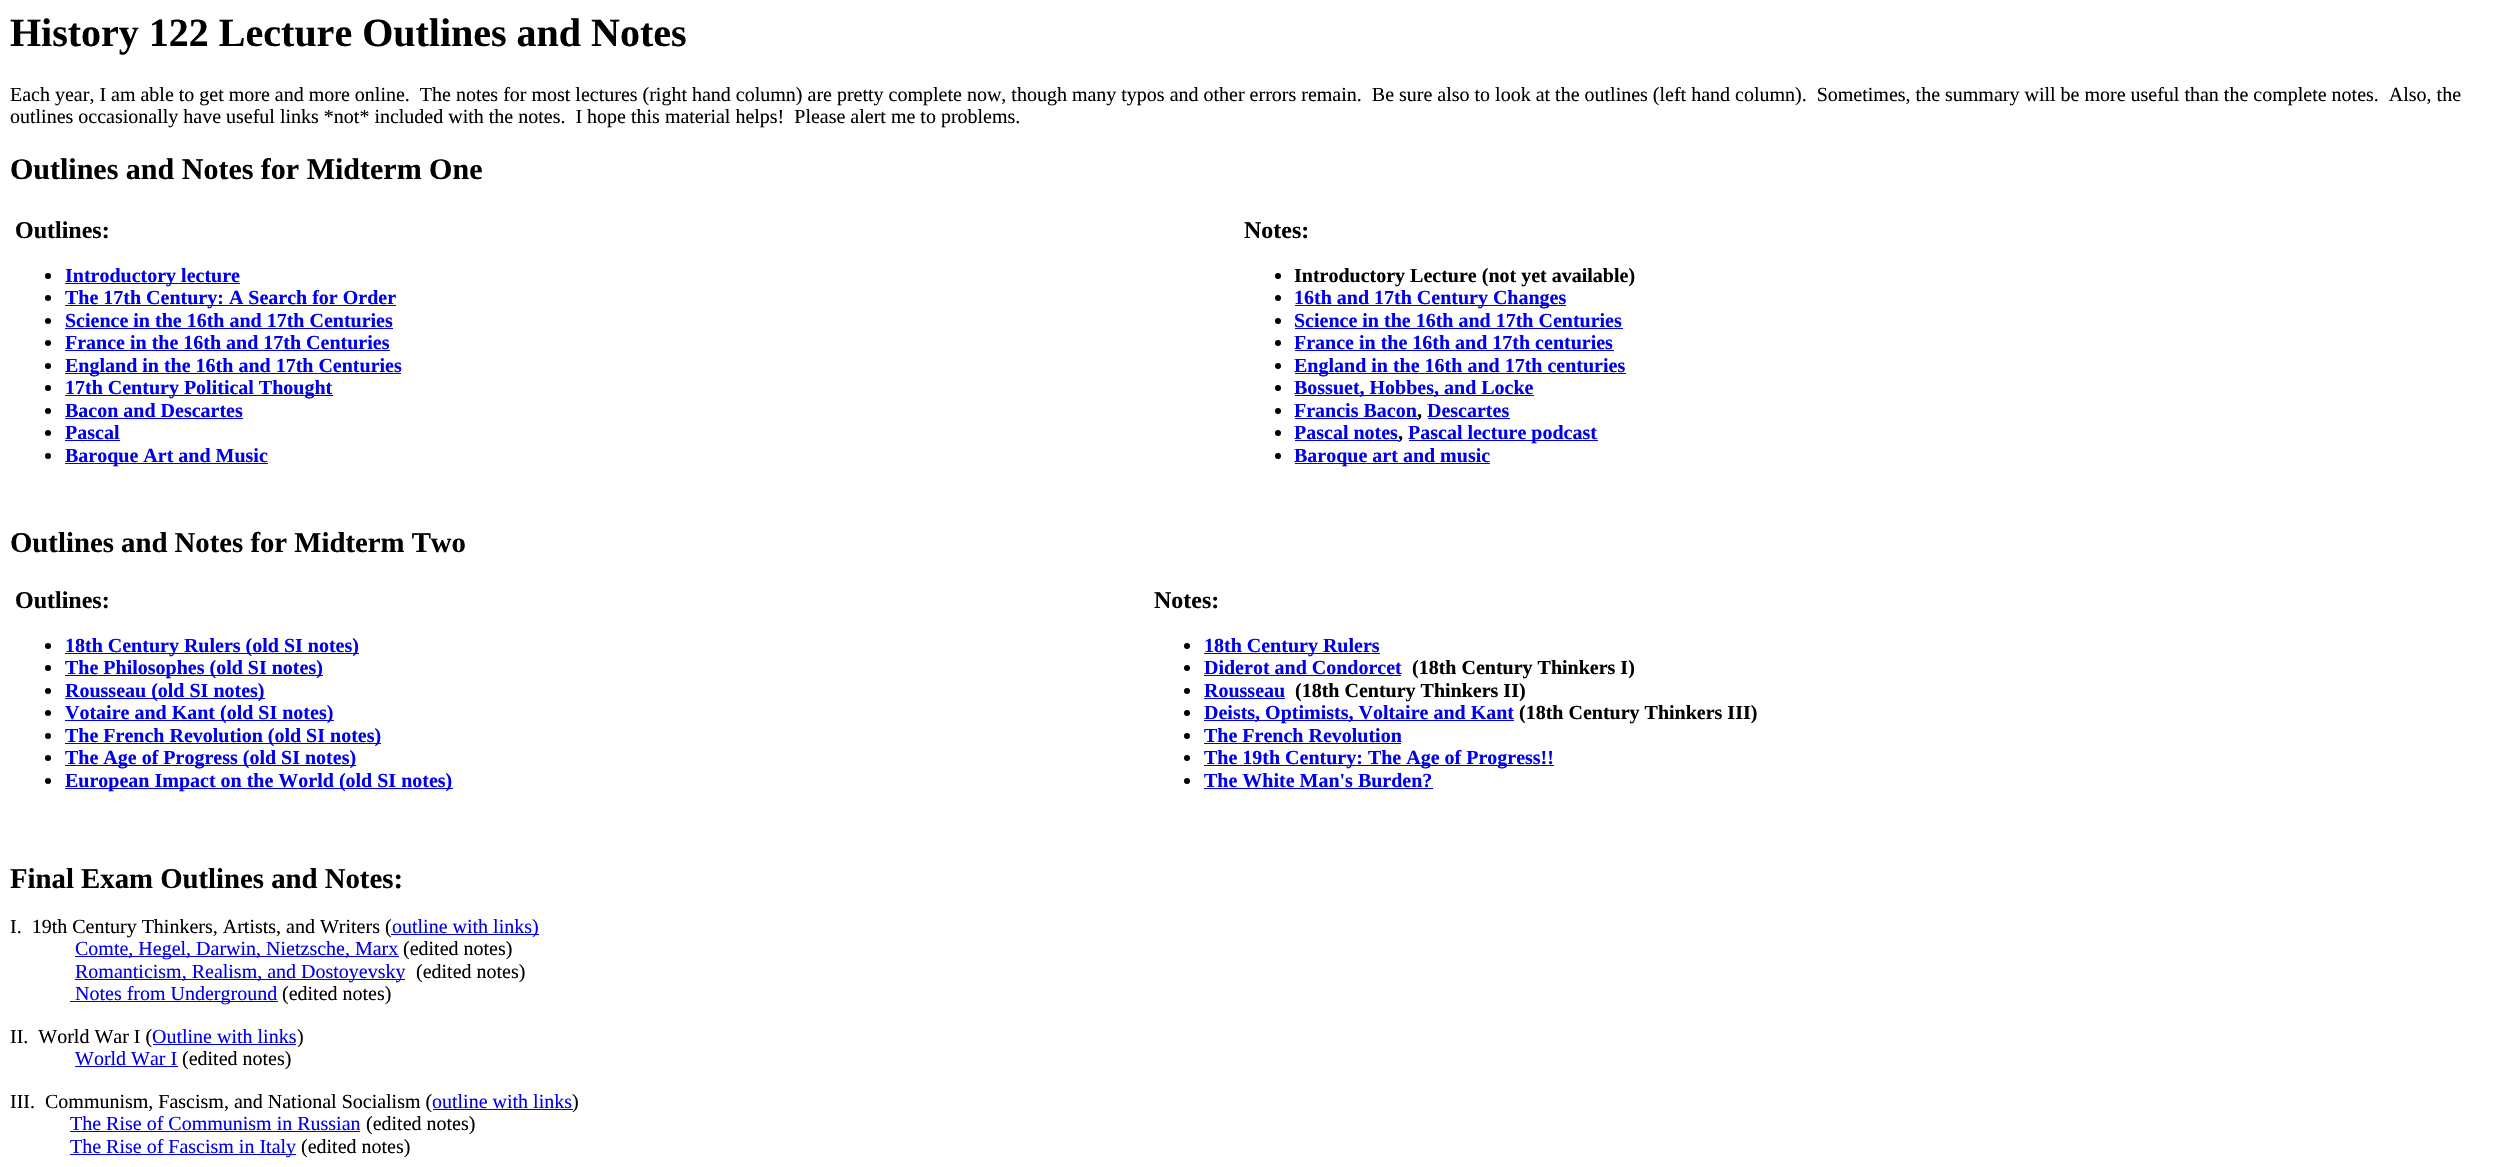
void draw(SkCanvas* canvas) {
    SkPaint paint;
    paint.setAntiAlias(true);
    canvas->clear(0xFFFFFFFF);
    SkFont font1(fontMgr->matchFamilyStyle("Liberation Serif", SkFontStyle::Bold()), 40);
    font1.setSubpixel(true);
    paint.setColor(0xFF000000);
    canvas->drawString("History 122 Lecture Outlines and Notes", 10, 46, font1, paint);
    SkFont font2(fontMgr->matchFamilyStyle("Liberation Serif", SkFontStyle::Normal()), 20);
    font2.setSubpixel(true);
    canvas->drawString("Each year, I am able to get more and more online.  The notes for most lectures (right hand column) are pretty complete now, though many typos and other errors remain.  Be sure also to look at the outlines (left hand column).  Sometimes, the summary will be more useful than the complete notes.  Also, the", 10, 101, font2, paint);
    canvas->drawString("outlines occasionally have useful links *not* included with the notes.  I hope this material helps!  Please alert me to problems.", 10, 123, font2, paint);
    SkFont font3(fontMgr->matchFamilyStyle("Liberation Serif", SkFontStyle::Bold()), 30);
    font3.setSubpixel(true);
    canvas->drawString("Outlines and Notes for Midterm One", 10, 179, font3, paint);
    SkFont font4(fontMgr->matchFamilyStyle("Liberation Serif", SkFontStyle::Bold()), 24);
    font4.setSubpixel(true);
    canvas->drawString("Outlines:", 15, 238, font4, paint);
    canvas->drawCircle(48, 276, 3, paint);
    paint.setColor(0xFF0000EE);
    canvas->drawRect(SkRect::MakeXYWH(65, 283, 175, 1), paint);
    SkFont font5(fontMgr->matchFamilyStyle("Liberation Serif", SkFontStyle::Bold()), 20);
    font5.setSubpixel(true);
    canvas->drawString("Introductory lecture", 65, 282, font5, paint);
    paint.setColor(0xFF000000);
    canvas->drawCircle(48, 298, 3, paint);
    paint.setColor(0xFF0000EE);
    canvas->drawRect(SkRect::MakeXYWH(65, 305, 331, 1), paint);
    canvas->drawString("The 17th Century: A Search for Order", 65, 304, font5, paint);
    paint.setColor(0xFF000000);
    canvas->drawCircle(48, 321, 3, paint);
    paint.setColor(0xFF0000EE);
    canvas->drawString("Science in the 16th and 17th Centuries", 65, 327, font5, paint);
    canvas->drawRect(SkRect::MakeXYWH(65, 328, 328, 1), paint);
    paint.setColor(0xFF000000);
    canvas->drawCircle(48, 343, 3, paint);
    paint.setColor(0xFF0000EE);
    canvas->drawString("France in the 16th and 17th Centuries", 65, 349, font5, paint);
    canvas->drawRect(SkRect::MakeXYWH(65, 350, 325, 1), paint);
    paint.setColor(0xFF000000);
    canvas->drawCircle(48, 366, 3, paint);
    paint.setColor(0xFF0000EE);
    canvas->drawRect(SkRect::MakeXYWH(65, 373, 336, 1), paint);
    canvas->drawString("England in the 16th and 17th Centuries", 65, 372, font5, paint);
    paint.setColor(0xFF000000);
    canvas->drawCircle(48, 388, 3, paint);
    paint.setColor(0xFF0000EE);
    canvas->drawRect(SkRect::MakeXYWH(65, 395, 268, 1), paint);
    canvas->drawString("17th Century Political Thought", 65, 394, font5, paint);
    paint.setColor(0xFF000000);
    canvas->drawCircle(48, 411, 3, paint);
    paint.setColor(0xFF0000EE);
    canvas->drawString("Bacon and Descartes", 65, 417, font5, paint);
    canvas->drawRect(SkRect::MakeXYWH(65, 418, 178, 1), paint);
    paint.setColor(0xFF000000);
    canvas->drawCircle(48, 433, 3, paint);
    paint.setColor(0xFF0000EE);
    canvas->drawString("Pascal", 65, 439, font5, paint);
    canvas->drawRect(SkRect::MakeXYWH(65, 440, 55, 1), paint);
    paint.setColor(0xFF000000);
    canvas->drawCircle(48, 456, 3, paint);
    paint.setColor(0xFF0000EE);
    canvas->drawRect(SkRect::MakeXYWH(65, 463, 203, 1), paint);
    canvas->drawString("Baroque Art and Music", 65, 462, font5, paint);
    paint.setColor(0xFF000000);
    canvas->drawString("Notes:", 1244, 238, font4, paint);
    canvas->drawCircle(1278, 276, 3, paint);
    canvas->drawString("Introductory Lecture (not yet available)", 1294, 282, font5, paint);
    canvas->drawCircle(1278, 298, 3, paint);
    paint.setColor(0xFF0000EE);
    canvas->drawRect(SkRect::MakeXYWH(1295, 305, 271, 1), paint);
    canvas->drawString("16th and 17th Century Changes", 1294, 304, font5, paint);
    paint.setColor(0xFF000000);
    canvas->drawCircle(1278, 321, 3, paint);
    paint.setColor(0xFF0000EE);
    canvas->drawString("Science in the 16th and 17th Centuries", 1294, 327, font5, paint);
    canvas->drawRect(SkRect::MakeXYWH(1295, 328, 328, 1), paint);
    paint.setColor(0xFF000000);
    canvas->drawCircle(1278, 343, 3, paint);
    paint.setColor(0xFF0000EE);
    canvas->drawString("France in the 16th and 17th centuries", 1294, 349, font5, paint);
    canvas->drawRect(SkRect::MakeXYWH(1295, 350, 319, 1), paint);
    paint.setColor(0xFF000000);
    canvas->drawCircle(1278, 366, 3, paint);
    paint.setColor(0xFF0000EE);
    canvas->drawRect(SkRect::MakeXYWH(1295, 373, 331, 1), paint);
    canvas->drawString("England in the 16th and 17th centuries", 1294, 372, font5, paint);
    paint.setColor(0xFF000000);
    canvas->drawCircle(1278, 388, 3, paint);
    paint.setColor(0xFF0000EE);
    canvas->drawRect(SkRect::MakeXYWH(1295, 395, 239, 1), paint);
    canvas->drawString("Bossuet, Hobbes, and Locke", 1294, 394, font5, paint);
    paint.setColor(0xFF000000);
    canvas->drawCircle(1278, 411, 3, paint);
    paint.setColor(0xFF0000EE);
    canvas->drawString("Francis Bacon", 1294, 417, font5, paint);
    canvas->drawString("Descartes", 1427, 417, font5, paint);
    canvas->drawRect(SkRect::MakeXYWH(1295, 418, 123, 1), paint);
    paint.setColor(0xFF000000);
    canvas->drawString(",", 1417, 417, font5, paint);
    paint.setColor(0xFF0000EE);
    canvas->drawRect(SkRect::MakeXYWH(1428, 418, 82, 1), paint);
    paint.setColor(0xFF000000);
    canvas->drawCircle(1278, 433, 3, paint);
    paint.setColor(0xFF0000EE);
    canvas->drawString("Pascal notes", 1294, 439, font5, paint);
    canvas->drawRect(SkRect::MakeXYWH(1409, 440, 189, 1), paint);
    canvas->drawString("Pascal lecture podcast", 1408, 439, font5, paint);
    canvas->drawRect(SkRect::MakeXYWH(1295, 440, 104, 1), paint);
    paint.setColor(0xFF000000);
    canvas->drawString(",", 1398, 439, font5, paint);
    canvas->drawCircle(1278, 456, 3, paint);
    paint.setColor(0xFF0000EE);
    canvas->drawRect(SkRect::MakeXYWH(1295, 463, 195, 1), paint);
    canvas->drawString("Baroque art and music", 1294, 462, font5, paint);
    SkFont font6(fontMgr->matchFamilyStyle("Liberation Serif", SkFontStyle::Bold()), 28.75f);
    font6.setSubpixel(true);
    paint.setColor(0xFF000000);
    canvas->drawString("Outlines and Notes for Midterm Two", 10, 552, font6, paint);
    canvas->drawString("Outlines:", 15, 608, font4, paint);
    canvas->drawCircle(48, 646, 3, paint);
    paint.setColor(0xFF0000EE);
    canvas->drawRect(SkRect::MakeXYWH(65, 653, 294, 1), paint);
    canvas->drawString("18th Century Rulers (old SI notes)", 65, 652, font5, paint);
    paint.setColor(0xFF000000);
    canvas->drawCircle(48, 668, 3, paint);
    paint.setColor(0xFF0000EE);
    canvas->drawRect(SkRect::MakeXYWH(65, 675, 258, 1), paint);
    canvas->drawString("The Philosophes (old SI notes)", 65, 674, font5, paint);
    paint.setColor(0xFF000000);
    canvas->drawCircle(48, 691, 3, paint);
    paint.setColor(0xFF0000EE);
    canvas->drawRect(SkRect::MakeXYWH(65, 698, 200, 1), paint);
    canvas->drawString("Rousseau (old SI notes)", 65, 697, font5, paint);
    paint.setColor(0xFF000000);
    canvas->drawCircle(48, 713, 3, paint);
    paint.setColor(0xFF0000EE);
    canvas->drawRect(SkRect::MakeXYWH(65, 720, 269, 1), paint);
    canvas->drawString("Votaire and Kant (old SI notes)", 65, 719, font5, paint);
    paint.setColor(0xFF000000);
    canvas->drawCircle(48, 736, 3, paint);
    paint.setColor(0xFF0000EE);
    canvas->drawRect(SkRect::MakeXYWH(65, 743, 316, 1), paint);
    canvas->drawString("The French Revolution (old SI notes)", 65, 742, font5, paint);
    paint.setColor(0xFF000000);
    canvas->drawCircle(48, 758, 3, paint);
    paint.setColor(0xFF0000EE);
    canvas->drawRect(SkRect::MakeXYWH(65, 765, 291, 1), paint);
    canvas->drawString("The Age of Progress (old SI notes)", 65, 764, font5, paint);
    paint.setColor(0xFF000000);
    canvas->drawCircle(48, 781, 3, paint);
    paint.setColor(0xFF0000EE);
    canvas->drawRect(SkRect::MakeXYWH(65, 788, 388, 1), paint);
    canvas->drawString("European Impact on the World (old SI notes)", 65, 787, font5, paint);
    paint.setColor(0xFF000000);
    canvas->drawString("Notes:", 1154, 608, font4, paint);
    canvas->drawCircle(1187, 646, 3, paint);
    paint.setColor(0xFF0000EE);
    canvas->drawRect(SkRect::MakeXYWH(1204, 653, 176, 1), paint);
    canvas->drawString("18th Century Rulers", 1204, 652, font5, paint);
    paint.setColor(0xFF000000);
    canvas->drawCircle(1187, 668, 3, paint);
    paint.setColor(0xFF0000EE);
    canvas->drawString("Diderot and Condorcet", 1204, 674, font5, paint);
    canvas->drawRect(SkRect::MakeXYWH(1204, 675, 197, 1), paint);
    paint.setColor(0xFF000000);
    canvas->drawString("(18th Century Thinkers I)", 1412, 674, font5, paint);
    canvas->drawCircle(1187, 691, 3, paint);
    paint.setColor(0xFF0000EE);
    canvas->drawString("Rousseau", 1204, 697, font5, paint);
    canvas->drawRect(SkRect::MakeXYWH(1204, 698, 81, 1), paint);
    paint.setColor(0xFF000000);
    canvas->drawString("(18th Century Thinkers II)", 1295, 697, font5, paint);
    canvas->drawCircle(1187, 713, 3, paint);
    paint.setColor(0xFF0000EE);
    canvas->drawRect(SkRect::MakeXYWH(1204, 720, 310, 1), paint);
    canvas->drawString("Deists, Optimists, Voltaire and Kant", 1204, 719, font5, paint);
    paint.setColor(0xFF000000);
    canvas->drawString("(18th Century Thinkers III)", 1519, 719, font5, paint);
    canvas->drawCircle(1187, 736, 3, paint);
    paint.setColor(0xFF0000EE);
    canvas->drawString("The French Revolution", 1204, 742, font5, paint);
    canvas->drawRect(SkRect::MakeXYWH(1204, 743, 197, 1), paint);
    paint.setColor(0xFF000000);
    canvas->drawCircle(1187, 758, 3, paint);
    paint.setColor(0xFF0000EE);
    canvas->drawRect(SkRect::MakeXYWH(1204, 765, 350, 1), paint);
    canvas->drawString("The 19th Century: The Age of Progress!!", 1204, 764, font5, paint);
    paint.setColor(0xFF000000);
    canvas->drawCircle(1187, 781, 3, paint);
    paint.setColor(0xFF0000EE);
    canvas->drawString("The White Man's Burden?", 1204, 787, font5, paint);
    canvas->drawRect(SkRect::MakeXYWH(1204, 788, 229, 1), paint);
    paint.setColor(0xFF000000);
    canvas->drawString("Final Exam Outlines and Notes:", 10, 888, font6, paint);
    canvas->drawString("I.  19th Century Thinkers, Artists, and Writers (", 10, 933, font2, paint);
    paint.setColor(0xFF0000EE);
    canvas->drawRect(SkRect::MakeXYWH(391, 934, 148, 1), paint);
    canvas->drawString("outline with links)", 392, 933, font2, paint);
    canvas->drawRect(SkRect::MakeXYWH(75, 956, 324, 1), paint);
    canvas->drawString("Comte, Hegel, Darwin, Nietzsche, Marx", 75, 955, font2, paint);
    paint.setColor(0xFF000000);
    canvas->drawString("(edited notes)", 403, 955, font2, paint);
    paint.setColor(0xFF0000EE);
    canvas->drawRect(SkRect::MakeXYWH(75, 979, 330, 1), paint);
    canvas->drawString("Romanticism, Realism, and Dostoyevsky", 75, 978, font2, paint);
    paint.setColor(0xFF000000);
    canvas->drawString("(edited notes)", 416, 978, font2, paint);
    paint.setColor(0xFF0000EE);
    canvas->drawRect(SkRect::MakeXYWH(70, 1001, 208, 1), paint);
    canvas->drawString("Notes from Underground", 75, 1000, font2, paint);
    paint.setColor(0xFF000000);
    canvas->drawString("(edited notes)", 282, 1000, font2, paint);
    canvas->drawString("II.  World War I (", 10, 1043, font2, paint);
    paint.setColor(0xFF0000EE);
    canvas->drawString("Outline with links", 152, 1043, font2, paint);
    canvas->drawRect(SkRect::MakeXYWH(153, 1044, 143, 1), paint);
    paint.setColor(0xFF000000);
    canvas->drawString(")", 297, 1043, font2, paint);
    paint.setColor(0xFF0000EE);
    canvas->drawString("World War I", 75, 1065, font2, paint);
    canvas->drawRect(SkRect::MakeXYWH(75, 1066, 103, 1), paint);
    paint.setColor(0xFF000000);
    canvas->drawString("(edited notes)", 182, 1065, font2, paint);
    canvas->drawString("III.  Communism, Fascism, and National Socialism (", 10, 1108, font2, paint);
    paint.setColor(0xFF0000EE);
    canvas->drawString("outline with links", 432, 1108, font2, paint);
    canvas->drawRect(SkRect::MakeXYWH(433, 1109, 140, 1), paint);
    paint.setColor(0xFF000000);
    canvas->drawString(")", 572, 1108, font2, paint);
    paint.setColor(0xFF0000EE);
    canvas->drawString("The Rise of Communism in Russian", 70, 1130, font2, paint);
    canvas->drawRect(SkRect::MakeXYWH(70, 1131, 290, 1), paint);
    paint.setColor(0xFF000000);
    canvas->drawString("(edited notes)", 366, 1130, font2, paint);
    paint.setColor(0xFF0000EE);
    canvas->drawRect(SkRect::MakeXYWH(70, 1154, 226, 1), paint);
    canvas->drawString("The Rise of Fascism in Italy", 70, 1153, font2, paint);
    paint.setColor(0xFF000000);
    canvas->drawString("(edited notes)", 301, 1153, font2, paint);
}
